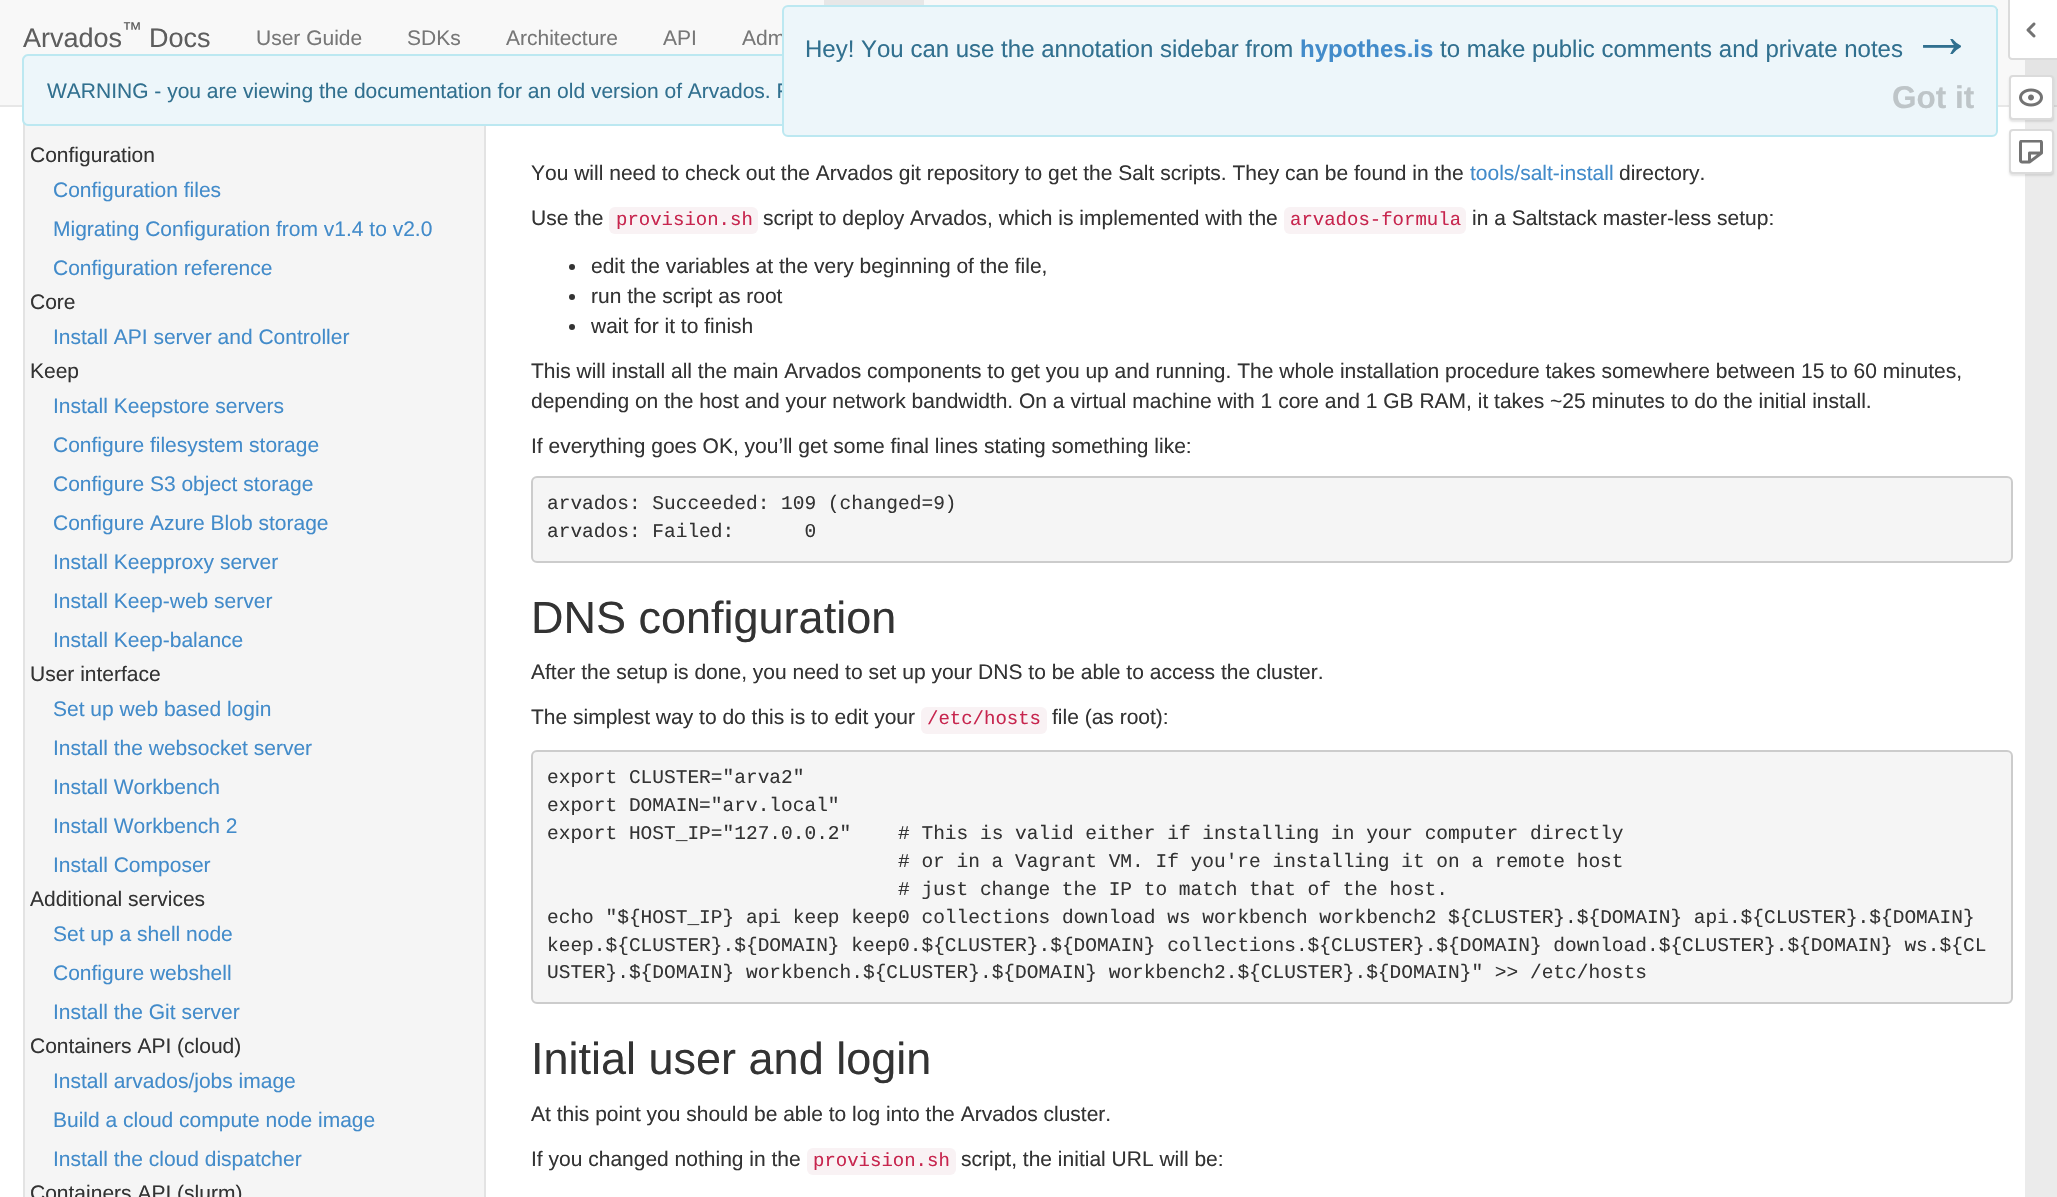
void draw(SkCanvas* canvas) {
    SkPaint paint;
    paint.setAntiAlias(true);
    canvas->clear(0xFFFFFFFF);
    paint.setColor(0xFFEBEBEB);
    canvas->drawRect(SkRect::MakeXYWH(2025, 107, 32, 1090), paint);
    paint.setColor(0xFFF5F5F5);
    canvas->drawRect(SkRect::MakeXYWH(25, 125, 459, 1072), paint);
    paint.setStyle(SkPaint::kStroke_Style);
    paint.setStrokeWidth(2);
    paint.setColor(0xFFE3E3E3);
    canvas->drawRect(SkRect::MakeXYWH(24, -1, 461, 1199), paint);
    paint.setStyle(SkPaint::kFill_Style);
    paint.setColor(0xFFF8F8F8);
    canvas->drawRect(SkRect::MakeXYWH(0, 0, 2025, 105), paint);
    paint.setColor(0xFFE4E4E4);
    canvas->drawRect(SkRect::MakeXYWH(2025, 60, 32, 45), paint);
    paint.setColor(0xFFE7E7E7);
    canvas->drawRect(SkRect::MakeXYWH(0, 105, 2009, 2), paint);
    paint.setColor(0xFFD5D5D5);
    canvas->drawRect(SkRect::MakeXYWH(2054, 105, 3, 2), paint);
    SkFont font1(fontMgr->matchFamilyStyle("Liberation Sans", SkFontStyle::Normal()), 20);
    font1.setSubpixel(true);
    paint.setColor(0xFF5E5E5E);
    canvas->drawString("™", 122, 36, font1, paint);
    SkFont font2(fontMgr->matchFamilyStyle("Liberation Sans", SkFontStyle::Normal()), 27);
    font2.setSubpixel(true);
    canvas->drawString("Arvados", 23, 47, font2, paint);
    canvas->drawString("Docs", 149, 47, font2, paint);
    paint.setColor(0xFFE7E7E7);
    canvas->drawRect(SkRect::MakeXYWH(824, 0, 100, 5), paint);
    SkFont font3(fontMgr->matchFamilyStyle("Liberation Sans", SkFontStyle::Normal()), 21);
    font3.setSubpixel(true);
    paint.setColor(0xFF777777);
    canvas->drawString("User Guide", 256, 45, font3, paint);
    canvas->drawString("SDKs", 407, 45, font3, paint);
    canvas->drawString("Architecture", 506, 45, font3, paint);
    canvas->drawString("API", 663, 45, font3, paint);
    canvas->drawString("Adm", 742, 45, font3, paint);
    paint.setStyle(SkPaint::kStroke_Style);
    paint.setColor(0xFFCCCCCC);
    canvas->drawRect(SkRect::MakeXYWH(1921, 10, 76, 49), paint);
    paint.setStyle(SkPaint::kFill_Style);
    paint.setColor(0xFFEDF6FA);
    canvas->drawPath(SkPathBuilder().moveTo(29, 54).lineTo(1031, 54).lineTo(1031, 126).lineTo(29, 126).cubicTo(25.5f, 126, 23, 123.5f, 23, 120).lineTo(23, 60).cubicTo(23, 56.5f, 25.5f, 54, 29, 54).close().detach(), paint);
    paint.setColor(0xFFBCE8F1);
    canvas->drawPath(SkPathBuilder(SkPathFillType::kEvenOdd).moveTo(28, 54).lineTo(1030, 54).lineTo(1030, 126).lineTo(28, 126).cubicTo(25, 126, 22, 123, 22, 120).lineTo(22, 60).cubicTo(22, 57, 25, 54, 28, 54).close().moveTo(28, 56).lineTo(1030, 56).lineTo(1030, 124).lineTo(28, 124).cubicTo(26, 124, 24, 122, 24, 120).lineTo(24, 60).cubicTo(24, 58, 26, 56, 28, 56).close().detach(), paint);
    paint.setColor(0xFF31708F);
    canvas->drawString("WARNING - you are viewing the documentation for an old version of Arvados. F", 47, 98, font3, paint);
    paint.setColor(0xFFEDF6FA);
    canvas->drawRoundRect(SkRect::MakeXYWH(783, 6, 1214, 130), 5, 5, paint);
    paint.setStyle(SkPaint::kStroke_Style);
    paint.setColor(0xFFBCE8F1);
    canvas->drawRoundRect(SkRect::MakeXYWH(783, 6, 1214, 130), 5, 5, paint);
    SkFont font4(fontMgr->matchFamilyStyle("Liberation Sans", SkFontStyle::Normal()), 24);
    font4.setSubpixel(true);
    paint.setStyle(SkPaint::kFill_Style);
    paint.setColor(0xFF31708F);
    canvas->drawString("Hey! You can use the annotation sidebar from", 805, 57, font4, paint);
    SkFont font5(fontMgr->matchFamilyStyle("Liberation Sans", SkFontStyle::Bold()), 24);
    font5.setSubpixel(true);
    paint.setColor(0xFF428BCA);
    canvas->drawString("hypothes.is", 1300, 57, font5, paint);
    paint.setColor(0xFF31708F);
    canvas->drawString("to make public comments and private notes", 1440, 57, font4, paint);
    SkFont font6(fontMgr->matchFamilyStyle("Liberation Sans", SkFontStyle::Normal()), 64);
    font6.setSubpixel(true);
    canvas->drawString("→", 1910, 57, font6, paint);
    SkFont font7(fontMgr->matchFamilyStyle("Liberation Sans", SkFontStyle::Bold()), 31.5f);
    font7.setSubpixel(true);
    paint.setColor(0xFFBEC5C8);
    canvas->drawString("Got it", 1892, 108, font7, paint);
    paint.setColor(0xFFFFFFFF);
    canvas->drawPath(SkPathBuilder().moveTo(2010, 0).lineTo(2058, 0).lineTo(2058, 59).lineTo(2012, 59).cubicTo(2011, 59, 2010, 58, 2010, 57).close().detach(), paint);
    paint.setColor(0xFFDBDBDB);
    canvas->drawPath(SkPathBuilder(SkPathFillType::kEvenOdd).moveTo(2008, 0).lineTo(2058, 0).lineTo(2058, 60).lineTo(2012, 60).cubicTo(2010, 60, 2008, 58, 2008, 56).close().moveTo(2010, 0).lineTo(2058, 0).lineTo(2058, 58).lineTo(2012, 58).cubicTo(2011, 58, 2010, 57, 2010, 56).close().detach(), paint);
    canvas->drawImageRect(SkImages::DeferredFromEncodedData(SkData::MakeFromFileName("img1.png")), SkRect::MakeXYWH(2026, 22, 10, 16), SkSamplingOptions());
    paint.setColor(0x1A000000);
    paint.setMaskFilter(SkMaskFilter::MakeBlur(kNormal_SkBlurStyle, 1));
    canvas->drawRoundRect(SkRect::MakeXYWH(2009, 77, 45, 45), 4, 4, paint);
    paint.setMaskFilter(nullptr);
    paint.setColor(0xFFFFFFFF);
    canvas->drawRoundRect(SkRect::MakeXYWH(2010, 76, 43, 43), 3, 3, paint);
    paint.setStyle(SkPaint::kStroke_Style);
    paint.setColor(0xFFDBDBDB);
    canvas->drawRoundRect(SkRect::MakeXYWH(2010, 76, 43, 43), 3, 3, paint);
    canvas->drawImageRect(SkImages::DeferredFromEncodedData(SkData::MakeFromFileName("img2.png")), SkRect::MakeXYWH(2019, 88, 24, 19), SkSamplingOptions());
    paint.setStyle(SkPaint::kFill_Style);
    paint.setColor(0x1A000000);
    paint.setMaskFilter(SkMaskFilter::MakeBlur(kNormal_SkBlurStyle, 1));
    canvas->drawRoundRect(SkRect::MakeXYWH(2009, 131, 45, 45), 4, 4, paint);
    paint.setMaskFilter(nullptr);
    paint.setColor(0xFFFFFFFF);
    canvas->drawRoundRect(SkRect::MakeXYWH(2010, 130, 43, 43), 3, 3, paint);
    paint.setStyle(SkPaint::kStroke_Style);
    paint.setColor(0xFFDBDBDB);
    canvas->drawRoundRect(SkRect::MakeXYWH(2010, 130, 43, 43), 3, 3, paint);
    canvas->drawImageRect(SkImages::DeferredFromEncodedData(SkData::MakeFromFileName("img3.png")), SkRect::MakeXYWH(2019, 140, 24, 24), SkSamplingOptions());
    paint.setStyle(SkPaint::kFill_Style);
    paint.setColor(0xFF333333);
    canvas->drawString("Configuration", 30, 162, font3, paint);
    paint.setColor(0xFF428BCA);
    canvas->drawString("Configuration files", 53, 197, font3, paint);
    canvas->drawString("Migrating Configuration from v1.4 to v2.0", 53, 236, font3, paint);
    canvas->drawString("Configuration reference", 53, 275, font3, paint);
    paint.setColor(0xFF333333);
    canvas->drawString("Core", 30, 309, font3, paint);
    paint.setColor(0xFF428BCA);
    canvas->drawString("Install API server and Controller", 53, 344, font3, paint);
    paint.setColor(0xFF333333);
    canvas->drawString("Keep", 30, 378, font3, paint);
    paint.setColor(0xFF428BCA);
    canvas->drawString("Install Keepstore servers", 53, 413, font3, paint);
    canvas->drawString("Configure filesystem storage", 53, 452, font3, paint);
    canvas->drawString("Configure S3 object storage", 53, 491, font3, paint);
    canvas->drawString("Configure Azure Blob storage", 53, 530, font3, paint);
    canvas->drawString("Install Keepproxy server", 53, 569, font3, paint);
    canvas->drawString("Install Keep-web server", 53, 608, font3, paint);
    canvas->drawString("Install Keep-balance", 53, 647, font3, paint);
    paint.setColor(0xFF333333);
    canvas->drawString("User interface", 30, 681, font3, paint);
    paint.setColor(0xFF428BCA);
    canvas->drawString("Set up web based login", 53, 716, font3, paint);
    canvas->drawString("Install the websocket server", 53, 755, font3, paint);
    canvas->drawString("Install Workbench", 53, 794, font3, paint);
    canvas->drawString("Install Workbench 2", 53, 833, font3, paint);
    canvas->drawString("Install Composer", 53, 872, font3, paint);
    paint.setColor(0xFF333333);
    canvas->drawString("Additional services", 30, 906, font3, paint);
    paint.setColor(0xFF428BCA);
    canvas->drawString("Set up a shell node", 53, 941, font3, paint);
    canvas->drawString("Configure webshell", 53, 980, font3, paint);
    canvas->drawString("Install the Git server", 53, 1019, font3, paint);
    paint.setColor(0xFF333333);
    canvas->drawString("Containers API (cloud)", 30, 1053, font3, paint);
    paint.setColor(0xFF428BCA);
    canvas->drawString("Install arvados/jobs image", 53, 1088, font3, paint);
    canvas->drawString("Build a cloud compute node image", 53, 1127, font3, paint);
    canvas->drawString("Install the cloud dispatcher", 53, 1166, font3, paint);
    paint.setColor(0xFF333333);
    canvas->drawString("Containers API (slurm)", 30, 1200, font3, paint);
    canvas->drawString("You will need to check out the Arvados git repository to get the Salt scripts. They can be found in the", 531, 180, font3, paint);
    paint.setColor(0xFF428BCA);
    canvas->drawString("tools/salt-install", 1470, 180, font3, paint);
    paint.setColor(0xFF333333);
    canvas->drawString("directory.", 1619, 180, font3, paint);
    canvas->drawString("Use the", 531, 225, font3, paint);
    paint.setColor(0xFFF9F2F4);
    canvas->drawRoundRect(SkRect::MakeXYWH(609, 207, 149, 27), 6, 6, paint);
    SkFont font8(fontMgr->matchFamilyStyle("Liberation Mono", SkFontStyle::Normal()), 19);
    font8.setSubpixel(true);
    paint.setColor(0xFFC7254E);
    canvas->drawString("provision.sh", 616, 225, font8, paint);
    paint.setColor(0xFF333333);
    canvas->drawString("script to deploy Arvados, which is implemented with the", 763, 225, font3, paint);
    paint.setColor(0xFFF9F2F4);
    canvas->drawRoundRect(SkRect::MakeXYWH(1284, 207, 182, 27), 6, 6, paint);
    paint.setColor(0xFFC7254E);
    canvas->drawString("arvados-formula", 1290, 225, font8, paint);
    paint.setColor(0xFF333333);
    canvas->drawString("in a Saltstack master-less setup:", 1472, 225, font3, paint);
    canvas->drawCircle(572, 267, 3, paint);
    canvas->drawString("edit the variables at the very beginning of the file,", 591, 273, font3, paint);
    canvas->drawCircle(572, 297, 3, paint);
    canvas->drawString("run the script as root", 591, 303, font3, paint);
    canvas->drawCircle(572, 327, 3, paint);
    canvas->drawString("wait for it to finish", 591, 333, font3, paint);
    canvas->drawString("This will install all the main Arvados components to get you up and running. The whole installation procedure takes somewhere between 15 to 60 minutes,", 531, 378, font3, paint);
    canvas->drawString("depending on the host and your network bandwidth. On a virtual machine with 1 core and 1 GB RAM, it takes ~25 minutes to do the initial install.", 531, 408, font3, paint);
    canvas->drawString("If everything goes OK, you’ll get some final lines stating something like:", 531, 453, font3, paint);
    paint.setColor(0xFFF5F5F5);
    canvas->drawRoundRect(SkRect::MakeXYWH(532, 477, 1480, 85), 5, 5, paint);
    paint.setStyle(SkPaint::kStroke_Style);
    paint.setColor(0xFFCCCCCC);
    canvas->drawRoundRect(SkRect::MakeXYWH(532, 477, 1480, 85), 5, 5, paint);
    SkFont font9(fontMgr->matchFamilyStyle("Liberation Mono", SkFontStyle::Normal()), 19.5f);
    font9.setSubpixel(true);
    paint.setStyle(SkPaint::kFill_Style);
    paint.setColor(0xFF333333);
    canvas->drawString("arvados: Succeeded: 109 (changed=9)", 547, 509, font9, paint);
    canvas->drawString("arvados: Failed:      0", 547, 537, font9, paint);
    SkFont font10(fontMgr->matchFamilyStyle("Liberation Sans", SkFontStyle::Normal()), 45);
    font10.setSubpixel(true);
    canvas->drawString("DNS configuration", 531, 633, font10, paint);
    canvas->drawString("After the setup is done, you need to set up your DNS to be able to access the cluster.", 531, 679, font3, paint);
    canvas->drawString("The simplest way to do this is to edit your", 531, 724, font3, paint);
    paint.setColor(0xFFF9F2F4);
    canvas->drawRoundRect(SkRect::MakeXYWH(921, 707, 126, 27), 6, 6, paint);
    paint.setColor(0xFFC7254E);
    canvas->drawString("/etc/hosts", 927, 724, font8, paint);
    paint.setColor(0xFF333333);
    canvas->drawString("file (as root):", 1052, 724, font3, paint);
    paint.setColor(0xFFF5F5F5);
    canvas->drawRoundRect(SkRect::MakeXYWH(532, 751, 1480, 252), 5, 5, paint);
    paint.setStyle(SkPaint::kStroke_Style);
    paint.setColor(0xFFCCCCCC);
    canvas->drawRoundRect(SkRect::MakeXYWH(532, 751, 1480, 252), 5, 5, paint);
    paint.setStyle(SkPaint::kFill_Style);
    paint.setColor(0xFF333333);
    canvas->drawString("export CLUSTER=\"arva2\"", 547, 783, font9, paint);
    canvas->drawString("export DOMAIN=\"arv.local\"", 547, 811, font9, paint);
    canvas->drawString("export HOST_IP=\"127.0.0.2\"    # This is valid either if installing in your computer directly", 547, 839, font9, paint);
    canvas->drawString("# or in a Vagrant VM. If you're installing it on a remote host", 898, 867, font9, paint);
    canvas->drawString("# just change the IP to match that of the host.", 898, 895, font9, paint);
    canvas->drawString("echo \"${HOST_IP} api keep keep0 collections download ws workbench workbench2 ${CLUSTER}.${DOMAIN} api.${CLUSTER}.${DOMAIN}", 547, 923, font9, paint);
    canvas->drawString("keep.${CLUSTER}.${DOMAIN} keep0.${CLUSTER}.${DOMAIN} collections.${CLUSTER}.${DOMAIN} download.${CLUSTER}.${DOMAIN} ws.${CL", 547, 951, font9, paint);
    canvas->drawString("USTER}.${DOMAIN} workbench.${CLUSTER}.${DOMAIN} workbench2.${CLUSTER}.${DOMAIN}\" >> /etc/hosts", 547, 978, font9, paint);
    canvas->drawString("Initial user and login", 531, 1074, font10, paint);
    canvas->drawString("At this point you should be able to log into the Arvados cluster.", 531, 1121, font3, paint);
    canvas->drawString("If you changed nothing in the", 531, 1166, font3, paint);
    paint.setColor(0xFFF9F2F4);
    canvas->drawRoundRect(SkRect::MakeXYWH(807, 1148, 149, 27), 6, 6, paint);
    paint.setColor(0xFFC7254E);
    canvas->drawString("provision.sh", 813, 1166, font8, paint);
    paint.setColor(0xFF333333);
    canvas->drawString("script, the initial URL will be:", 961, 1166, font3, paint);
}
